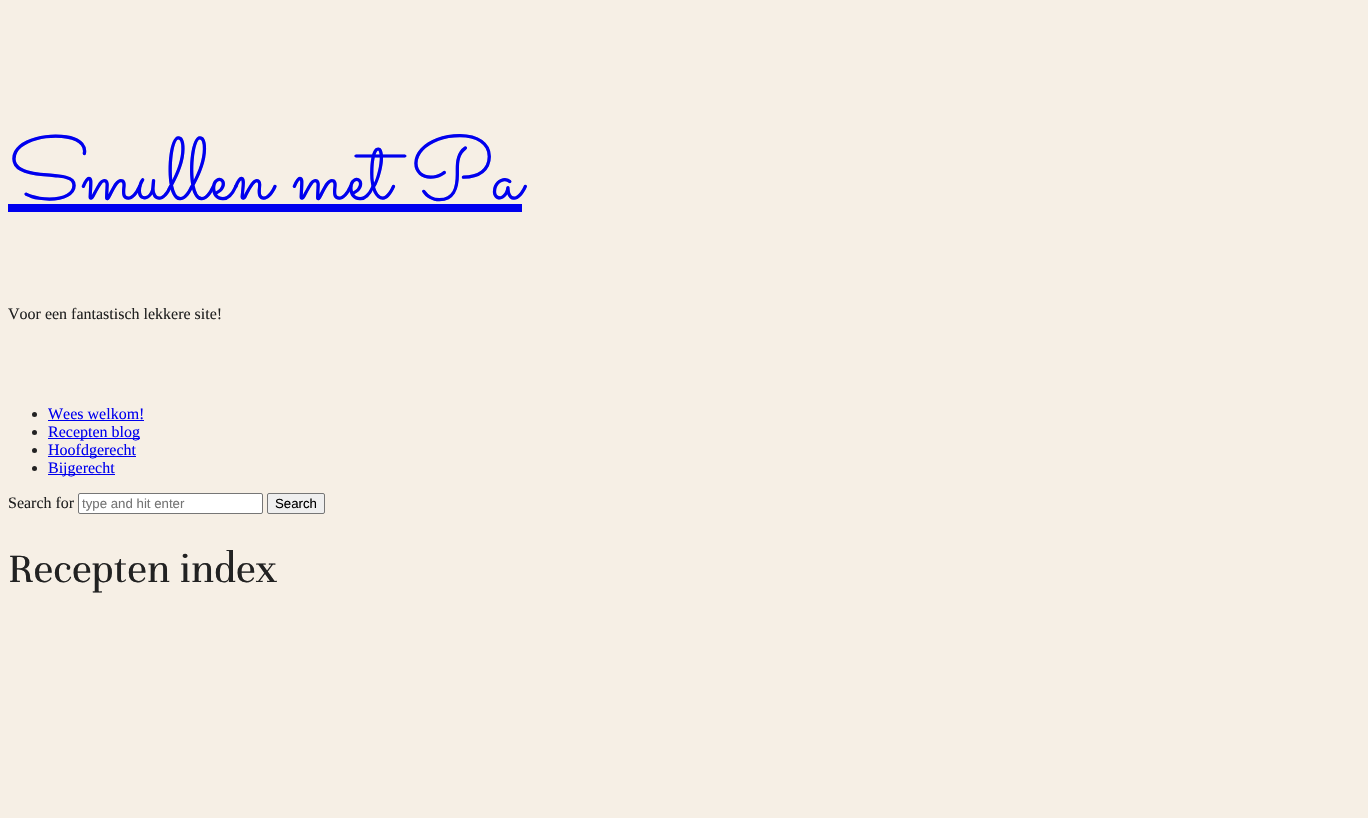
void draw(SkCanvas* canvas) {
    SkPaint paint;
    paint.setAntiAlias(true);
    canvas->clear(0xFFF6EFE5);
    SkFont font1(fontMgr->matchFamilyStyle("Sacramento", SkFontStyle::Normal()), 88);
    font1.setSubpixel(true);
    paint.setColor(0xFF0000EE);
    canvas->drawString("Smullen met Pa", 8, 199, font1, paint);
    canvas->drawRect(SkRect::MakeXYWH(8, 204, 514, 8), paint);
    SkFont font2(fontMgr->matchFamilyStyle("Liberation Serif", SkFontStyle::Normal()), 16);
    font2.setSubpixel(true);
    paint.setColor(0xFF222222);
    canvas->drawString("Voor een fantastisch lekkere site!", 8, 319, font2, paint);
    canvas->drawCircle(34.5f, 414.5f, 2.5f, paint);
    paint.setColor(0xFF0000EE);
    canvas->drawString("Wees welkom!", 48, 419, font2, paint);
    canvas->drawRect(SkRect::MakeXYWH(48, 420, 96, 1), paint);
    paint.setColor(0xFF222222);
    canvas->drawCircle(34.5f, 432.5f, 2.5f, paint);
    paint.setColor(0xFF0000EE);
    canvas->drawRect(SkRect::MakeXYWH(48, 438, 92, 1), paint);
    canvas->drawString("Recepten blog", 48, 437, font2, paint);
    paint.setColor(0xFF222222);
    canvas->drawCircle(34.5f, 450.5f, 2.5f, paint);
    paint.setColor(0xFF0000EE);
    canvas->drawRect(SkRect::MakeXYWH(48, 456, 88, 1), paint);
    canvas->drawString("Hoofdgerecht", 48, 455, font2, paint);
    paint.setColor(0xFF222222);
    canvas->drawCircle(34.5f, 468.5f, 2.5f, paint);
    paint.setColor(0xFF0000EE);
    canvas->drawRect(SkRect::MakeXYWH(48, 474, 67, 1), paint);
    canvas->drawString("Bijgerecht", 48, 473, font2, paint);
    paint.setColor(0xFF222222);
    canvas->drawString("Search for", 8, 508, font2, paint);
    paint.setColor(0xFFFFFFFF);
    canvas->drawRoundRect(SkRect::MakeXYWH(78.5f, 493.5f, 184, 20), 1.5f, 1.5f, paint);
    paint.setStyle(SkPaint::kStroke_Style);
    paint.setStrokeWidth(1);
    paint.setColor(0xFF767676);
    canvas->drawRoundRect(SkRect::MakeXYWH(78.5f, 493.5f, 184, 20), 1.5f, 1.5f, paint);
    SkFont font3(fontMgr->matchFamilyStyle("Liberation Sans", SkFontStyle::Normal()), 13.25f);
    font3.setSubpixel(true);
    paint.setStyle(SkPaint::kFill_Style);
    paint.setColor(0xFF757575);
    canvas->drawString("type and hit enter", 82, 508, font3, paint);
    paint.setColor(0xFFEFEFEF);
    canvas->drawRoundRect(SkRect::MakeXYWH(267.5f, 493.5f, 57, 20), 1.5f, 1.5f, paint);
    paint.setStyle(SkPaint::kStroke_Style);
    paint.setColor(0xFF767676);
    canvas->drawRoundRect(SkRect::MakeXYWH(267.5f, 493.5f, 57, 20), 1.5f, 1.5f, paint);
    paint.setStyle(SkPaint::kFill_Style);
    paint.setColor(0xFF000000);
    canvas->drawString("Search", 275, 508, font3, paint);
    SkFont font4(fontMgr->matchFamilyStyle("Unna", SkFontStyle::Normal()), 44);
    font4.setSubpixel(true);
    paint.setColor(0xFF222222);
    canvas->drawString("Recepten index", 8, 582, font4, paint);
}
